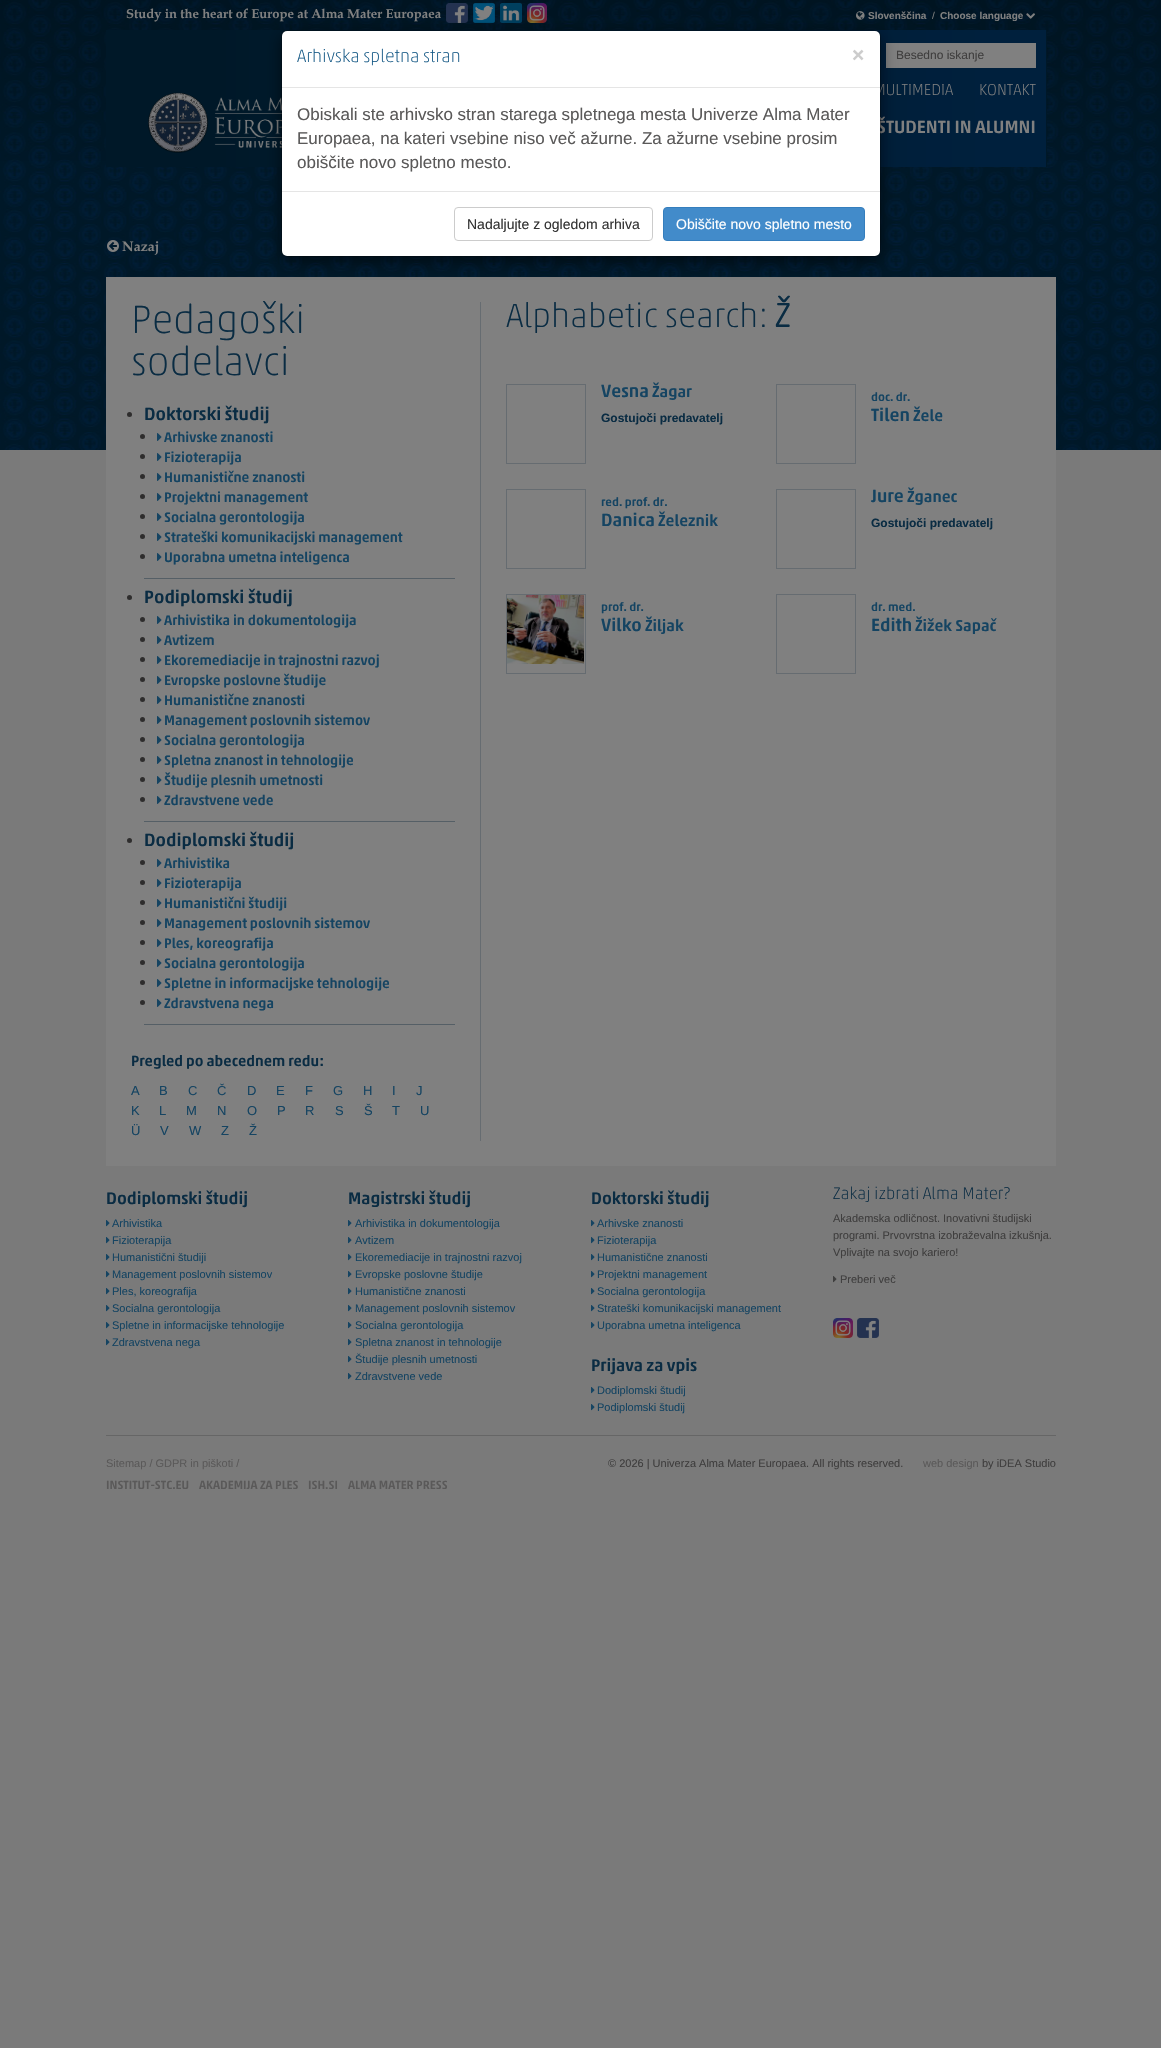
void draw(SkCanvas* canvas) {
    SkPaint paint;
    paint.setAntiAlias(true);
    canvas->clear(0xFF7A7A7A);
    canvas->drawImageRect(SkImages::DeferredFromEncodedData(SkData::MakeFromFileName("img1.png")), SkRect::MakeXYWH(0, 0, 1161, 450), SkSamplingOptions());
    canvas->drawImageRect(SkImages::DeferredFromEncodedData(SkData::MakeFromFileName("img2.png")), SkRect::MakeXYWH(0, 0, 1161, 161), SkSamplingOptions());
    SkFont font1(fontMgr->matchFamilyStyle("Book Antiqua", SkFontStyle::Bold()), 13);
    font1.setSubpixel(true);
    paint.setColor(0xFF808080);
    canvas->drawString("Study in the heart of Europe at Alma Mater Europaea", 126, 18, font1, paint);
    canvas->drawImageRect(SkImages::DeferredFromEncodedData(SkData::MakeFromFileName("img3.png")), SkRect::MakeXYWH(446, 3, 22, 20), SkSamplingOptions());
    canvas->drawImageRect(SkImages::DeferredFromEncodedData(SkData::MakeFromFileName("img4.png")), SkRect::MakeXYWH(473, 3, 22, 20), SkSamplingOptions());
    canvas->drawImageRect(SkImages::DeferredFromEncodedData(SkData::MakeFromFileName("img5.png")), SkRect::MakeXYWH(500, 3, 22, 20), SkSamplingOptions());
    canvas->drawImageRect(SkImages::DeferredFromEncodedData(SkData::MakeFromFileName("img6.png")), SkRect::MakeXYWH(527, 3, 20, 20), SkSamplingOptions());
    canvas->drawImageRect(SkImages::DeferredFromEncodedData(SkData::MakeFromFileName("img7.png")), SkRect::MakeXYWH(856, 11, 9, 9), SkSamplingOptions());
    SkFont font2(fontMgr->matchFamilyStyle("Liberation Sans", SkFontStyle::Bold()), 10);
    font2.setSubpixel(true);
    canvas->drawString("Slovenščina", 868, 19, font2, paint);
    SkFont font3(fontMgr->matchFamilyStyle("Liberation Sans", SkFontStyle::Normal()), 10);
    font3.setSubpixel(true);
    canvas->drawString("/", 932, 19, font3, paint);
    canvas->drawString("Choose language", 940, 19, font2, paint);
    canvas->drawImageRect(SkImages::DeferredFromEncodedData(SkData::MakeFromFileName("img8.png")), SkRect::MakeXYWH(1026, 13, 9, 6), SkSamplingOptions());
    canvas->drawImageRect(SkImages::DeferredFromEncodedData(SkData::MakeFromFileName("img9.png")), SkRect::MakeXYWH(106, 30, 941, 137), SkSamplingOptions());
    canvas->drawRect(SkRect::MakeXYWH(886, 43, 150, 25), paint);
    SkFont font4(fontMgr->matchFamilyStyle("Liberation Sans", SkFontStyle::Normal()), 12);
    font4.setSubpixel(true);
    paint.setColor(0xFF3F3E3E);
    canvas->drawString("Besedno iskanje", 896, 59, font4, paint);
    canvas->drawImageRect(SkImages::DeferredFromEncodedData(SkData::MakeFromFileName("img10.png")), SkRect::MakeXYWH(148, 92, 134, 61), SkSamplingOptions());
    SkFont font5(fontMgr->matchFamilyStyle("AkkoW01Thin", SkFontStyle(100, SkFontStyle::kNormal_Width, SkFontStyle::kUpright_Slant)), 16);
    font5.setSubpixel(true);
    paint.setColor(0xFF808080);
    canvas->drawString("MULTIMEDIA", 874, 95, font5, paint);
    canvas->drawString("KONTAKT", 979, 95, font5, paint);
    SkFont font6(fontMgr->matchFamilyStyle("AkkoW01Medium", SkFontStyle(500, SkFontStyle::kNormal_Width, SkFontStyle::kUpright_Slant)), 18);
    font6.setSubpixel(true);
    canvas->drawString("ŠTUDENTI IN ALUMNI", 877, 133, font6, paint);
    canvas->drawImageRect(SkImages::DeferredFromEncodedData(SkData::MakeFromFileName("img11.png")), SkRect::MakeXYWH(107, 240, 12, 12), SkSamplingOptions());
    SkFont font7(fontMgr->matchFamilyStyle("Book Antiqua", SkFontStyle::Bold()), 14);
    font7.setSubpixel(true);
    canvas->drawString("Nazaj", 122, 251, font7, paint);
    canvas->drawRect(SkRect::MakeXYWH(106, 277, 950, 889), paint);
    paint.setColor(0xFF666C71);
    canvas->drawRect(SkRect::MakeXYWH(480, 302, 1, 839), paint);
    SkFont font8(fontMgr->matchFamilyStyle("AkkoW01Thin", SkFontStyle(100, SkFontStyle::kNormal_Width, SkFontStyle::kUpright_Slant)), 40);
    font8.setSubpixel(true);
    paint.setColor(0xFF0A2C43);
    canvas->drawString("Pedagoški", 131, 333, font8, paint);
    canvas->drawString("sodelavci", 131, 375, font8, paint);
    paint.setColor(0xFF2E2D2D);
    canvas->drawCircle(129.5f, 414.5f, 2.5f, paint);
    paint.setColor(0xFF0A2C43);
    canvas->drawString("Doktorski študij", 144, 420, font6, paint);
    paint.setColor(0xFF555F66);
    canvas->drawRect(SkRect::MakeXYWH(144, 578, 311, 1), paint);
    paint.setColor(0xFF2E2D2D);
    canvas->drawCircle(142.5f, 436.5f, 2.5f, paint);
    canvas->drawImageRect(SkImages::DeferredFromEncodedData(SkData::MakeFromFileName("img12.png")), SkRect::MakeXYWH(157, 433, 5, 8), SkSamplingOptions());
    SkFont font9(fontMgr->matchFamilyStyle("AkkoW01Medium", SkFontStyle(500, SkFontStyle::kNormal_Width, SkFontStyle::kUpright_Slant)), 14);
    font9.setSubpixel(true);
    paint.setColor(0xFF154462);
    canvas->drawString("Arhivske znanosti", 164, 442, font9, paint);
    paint.setColor(0xFF2E2D2D);
    canvas->drawCircle(142.5f, 456.5f, 2.5f, paint);
    canvas->drawImageRect(SkImages::DeferredFromEncodedData(SkData::MakeFromFileName("img12.png")), SkRect::MakeXYWH(157, 453, 5, 8), SkSamplingOptions());
    paint.setColor(0xFF154462);
    canvas->drawString("Fizioterapija", 164, 462, font9, paint);
    paint.setColor(0xFF2E2D2D);
    canvas->drawCircle(142.5f, 476.5f, 2.5f, paint);
    canvas->drawImageRect(SkImages::DeferredFromEncodedData(SkData::MakeFromFileName("img12.png")), SkRect::MakeXYWH(157, 473, 5, 8), SkSamplingOptions());
    paint.setColor(0xFF154462);
    canvas->drawString("Humanistične znanosti", 164, 482, font9, paint);
    paint.setColor(0xFF2E2D2D);
    canvas->drawCircle(142.5f, 496.5f, 2.5f, paint);
    canvas->drawImageRect(SkImages::DeferredFromEncodedData(SkData::MakeFromFileName("img12.png")), SkRect::MakeXYWH(157, 493, 5, 8), SkSamplingOptions());
    paint.setColor(0xFF154462);
    canvas->drawString("Projektni management", 164, 502, font9, paint);
    paint.setColor(0xFF2E2D2D);
    canvas->drawCircle(142.5f, 516.5f, 2.5f, paint);
    canvas->drawImageRect(SkImages::DeferredFromEncodedData(SkData::MakeFromFileName("img12.png")), SkRect::MakeXYWH(157, 513, 5, 8), SkSamplingOptions());
    paint.setColor(0xFF154462);
    canvas->drawString("Socialna gerontologija", 164, 522, font9, paint);
    paint.setColor(0xFF2E2D2D);
    canvas->drawCircle(142.5f, 536.5f, 2.5f, paint);
    canvas->drawImageRect(SkImages::DeferredFromEncodedData(SkData::MakeFromFileName("img12.png")), SkRect::MakeXYWH(157, 533, 5, 8), SkSamplingOptions());
    paint.setColor(0xFF154462);
    canvas->drawString("Strateški komunikacijski management", 164, 542, font9, paint);
    paint.setColor(0xFF2E2D2D);
    canvas->drawCircle(142.5f, 556.5f, 2.5f, paint);
    canvas->drawImageRect(SkImages::DeferredFromEncodedData(SkData::MakeFromFileName("img12.png")), SkRect::MakeXYWH(157, 553, 5, 8), SkSamplingOptions());
    paint.setColor(0xFF154462);
    canvas->drawString("Uporabna umetna inteligenca", 164, 562, font9, paint);
    paint.setColor(0xFF2E2D2D);
    canvas->drawCircle(129.5f, 597.5f, 2.5f, paint);
    paint.setColor(0xFF0A2C43);
    canvas->drawString("Podiplomski študij", 144, 603, font6, paint);
    paint.setColor(0xFF555F66);
    canvas->drawRect(SkRect::MakeXYWH(144, 821, 311, 1), paint);
    paint.setColor(0xFF2E2D2D);
    canvas->drawCircle(142.5f, 619.5f, 2.5f, paint);
    canvas->drawImageRect(SkImages::DeferredFromEncodedData(SkData::MakeFromFileName("img12.png")), SkRect::MakeXYWH(157, 616, 5, 8), SkSamplingOptions());
    paint.setColor(0xFF154462);
    canvas->drawString("Arhivistika in dokumentologija", 164, 625, font9, paint);
    paint.setColor(0xFF2E2D2D);
    canvas->drawCircle(142.5f, 639.5f, 2.5f, paint);
    canvas->drawImageRect(SkImages::DeferredFromEncodedData(SkData::MakeFromFileName("img12.png")), SkRect::MakeXYWH(157, 636, 5, 8), SkSamplingOptions());
    paint.setColor(0xFF154462);
    canvas->drawString("Avtizem", 164, 645, font9, paint);
    paint.setColor(0xFF2E2D2D);
    canvas->drawCircle(142.5f, 659.5f, 2.5f, paint);
    canvas->drawImageRect(SkImages::DeferredFromEncodedData(SkData::MakeFromFileName("img12.png")), SkRect::MakeXYWH(157, 656, 5, 8), SkSamplingOptions());
    paint.setColor(0xFF154462);
    canvas->drawString("Ekoremediacije in trajnostni razvoj", 164, 665, font9, paint);
    paint.setColor(0xFF2E2D2D);
    canvas->drawCircle(142.5f, 679.5f, 2.5f, paint);
    canvas->drawImageRect(SkImages::DeferredFromEncodedData(SkData::MakeFromFileName("img12.png")), SkRect::MakeXYWH(157, 676, 5, 8), SkSamplingOptions());
    paint.setColor(0xFF154462);
    canvas->drawString("Evropske poslovne študije", 164, 685, font9, paint);
    paint.setColor(0xFF2E2D2D);
    canvas->drawCircle(142.5f, 699.5f, 2.5f, paint);
    canvas->drawImageRect(SkImages::DeferredFromEncodedData(SkData::MakeFromFileName("img12.png")), SkRect::MakeXYWH(157, 696, 5, 8), SkSamplingOptions());
    paint.setColor(0xFF154462);
    canvas->drawString("Humanistične znanosti", 164, 705, font9, paint);
    paint.setColor(0xFF2E2D2D);
    canvas->drawCircle(142.5f, 719.5f, 2.5f, paint);
    canvas->drawImageRect(SkImages::DeferredFromEncodedData(SkData::MakeFromFileName("img12.png")), SkRect::MakeXYWH(157, 716, 5, 8), SkSamplingOptions());
    paint.setColor(0xFF154462);
    canvas->drawString("Management poslovnih sistemov", 164, 725, font9, paint);
    paint.setColor(0xFF2E2D2D);
    canvas->drawCircle(142.5f, 739.5f, 2.5f, paint);
    canvas->drawImageRect(SkImages::DeferredFromEncodedData(SkData::MakeFromFileName("img12.png")), SkRect::MakeXYWH(157, 736, 5, 8), SkSamplingOptions());
    paint.setColor(0xFF154462);
    canvas->drawString("Socialna gerontologija", 164, 745, font9, paint);
    paint.setColor(0xFF2E2D2D);
    canvas->drawCircle(142.5f, 759.5f, 2.5f, paint);
    canvas->drawImageRect(SkImages::DeferredFromEncodedData(SkData::MakeFromFileName("img12.png")), SkRect::MakeXYWH(157, 756, 5, 8), SkSamplingOptions());
    paint.setColor(0xFF154462);
    canvas->drawString("Spletna znanost in tehnologije", 164, 765, font9, paint);
    paint.setColor(0xFF2E2D2D);
    canvas->drawCircle(142.5f, 779.5f, 2.5f, paint);
    canvas->drawImageRect(SkImages::DeferredFromEncodedData(SkData::MakeFromFileName("img12.png")), SkRect::MakeXYWH(157, 776, 5, 8), SkSamplingOptions());
    paint.setColor(0xFF154462);
    canvas->drawString("Študije plesnih umetnosti", 164, 785, font9, paint);
    paint.setColor(0xFF2E2D2D);
    canvas->drawCircle(142.5f, 799.5f, 2.5f, paint);
    canvas->drawImageRect(SkImages::DeferredFromEncodedData(SkData::MakeFromFileName("img12.png")), SkRect::MakeXYWH(157, 796, 5, 8), SkSamplingOptions());
    paint.setColor(0xFF154462);
    canvas->drawString("Zdravstvene vede", 164, 805, font9, paint);
    paint.setColor(0xFF2E2D2D);
    canvas->drawCircle(129.5f, 840.5f, 2.5f, paint);
    paint.setColor(0xFF0A2C43);
    canvas->drawString("Dodiplomski študij", 144, 846, font6, paint);
    paint.setColor(0xFF555F66);
    canvas->drawRect(SkRect::MakeXYWH(144, 1024, 311, 1), paint);
    paint.setColor(0xFF2E2D2D);
    canvas->drawCircle(142.5f, 862.5f, 2.5f, paint);
    canvas->drawImageRect(SkImages::DeferredFromEncodedData(SkData::MakeFromFileName("img12.png")), SkRect::MakeXYWH(157, 859, 5, 8), SkSamplingOptions());
    paint.setColor(0xFF154462);
    canvas->drawString("Arhivistika", 164, 868, font9, paint);
    paint.setColor(0xFF2E2D2D);
    canvas->drawCircle(142.5f, 882.5f, 2.5f, paint);
    canvas->drawImageRect(SkImages::DeferredFromEncodedData(SkData::MakeFromFileName("img12.png")), SkRect::MakeXYWH(157, 879, 5, 8), SkSamplingOptions());
    paint.setColor(0xFF154462);
    canvas->drawString("Fizioterapija", 164, 888, font9, paint);
    paint.setColor(0xFF2E2D2D);
    canvas->drawCircle(142.5f, 902.5f, 2.5f, paint);
    canvas->drawImageRect(SkImages::DeferredFromEncodedData(SkData::MakeFromFileName("img12.png")), SkRect::MakeXYWH(157, 899, 5, 8), SkSamplingOptions());
    paint.setColor(0xFF154462);
    canvas->drawString("Humanistični študiji", 164, 908, font9, paint);
    paint.setColor(0xFF2E2D2D);
    canvas->drawCircle(142.5f, 922.5f, 2.5f, paint);
    canvas->drawImageRect(SkImages::DeferredFromEncodedData(SkData::MakeFromFileName("img12.png")), SkRect::MakeXYWH(157, 919, 5, 8), SkSamplingOptions());
    paint.setColor(0xFF154462);
    canvas->drawString("Management poslovnih sistemov", 164, 928, font9, paint);
    paint.setColor(0xFF2E2D2D);
    canvas->drawCircle(142.5f, 942.5f, 2.5f, paint);
    canvas->drawImageRect(SkImages::DeferredFromEncodedData(SkData::MakeFromFileName("img12.png")), SkRect::MakeXYWH(157, 939, 5, 8), SkSamplingOptions());
    paint.setColor(0xFF154462);
    canvas->drawString("Ples, koreografija", 164, 948, font9, paint);
    paint.setColor(0xFF2E2D2D);
    canvas->drawCircle(142.5f, 962.5f, 2.5f, paint);
    canvas->drawImageRect(SkImages::DeferredFromEncodedData(SkData::MakeFromFileName("img12.png")), SkRect::MakeXYWH(157, 959, 5, 8), SkSamplingOptions());
    paint.setColor(0xFF154462);
    canvas->drawString("Socialna gerontologija", 164, 968, font9, paint);
    paint.setColor(0xFF2E2D2D);
    canvas->drawCircle(142.5f, 982.5f, 2.5f, paint);
    canvas->drawImageRect(SkImages::DeferredFromEncodedData(SkData::MakeFromFileName("img12.png")), SkRect::MakeXYWH(157, 979, 5, 8), SkSamplingOptions());
    paint.setColor(0xFF154462);
    canvas->drawString("Spletne in informacijske tehnologije", 164, 988, font9, paint);
    paint.setColor(0xFF2E2D2D);
    canvas->drawCircle(142.5f, 1002.5f, 2.5f, paint);
    canvas->drawImageRect(SkImages::DeferredFromEncodedData(SkData::MakeFromFileName("img12.png")), SkRect::MakeXYWH(157, 999, 5, 8), SkSamplingOptions());
    paint.setColor(0xFF154462);
    canvas->drawString("Zdravstvena nega", 164, 1008, font9, paint);
    SkFont font10(fontMgr->matchFamilyStyle("AkkoW01Medium", SkFontStyle(500, SkFontStyle::kNormal_Width, SkFontStyle::kUpright_Slant)), 15);
    font10.setSubpixel(true);
    paint.setColor(0xFF0A2C43);
    canvas->drawString("Pregled po abecednem redu:", 131, 1066, font10, paint);
    SkFont font11(fontMgr->matchFamilyStyle("Liberation Sans", SkFontStyle::Normal()), 13);
    font11.setSubpixel(true);
    paint.setColor(0xFF154462);
    canvas->drawString("A", 131, 1095, font11, paint);
    canvas->drawString("B", 159, 1095, font11, paint);
    canvas->drawString("C", 188, 1095, font11, paint);
    canvas->drawString("Č", 217, 1095, font11, paint);
    canvas->drawString("D", 247, 1095, font11, paint);
    canvas->drawString("E", 276, 1095, font11, paint);
    canvas->drawString("F", 305, 1095, font11, paint);
    canvas->drawString("G", 333, 1095, font11, paint);
    canvas->drawString("H", 363, 1095, font11, paint);
    canvas->drawString("I", 392, 1095, font11, paint);
    canvas->drawString("J", 416, 1095, font11, paint);
    canvas->drawString("K", 131, 1115, font11, paint);
    canvas->drawString("L", 159, 1115, font11, paint);
    canvas->drawString("M", 186, 1115, font11, paint);
    canvas->drawString("N", 217, 1115, font11, paint);
    canvas->drawString("O", 247, 1115, font11, paint);
    canvas->drawString("P", 277, 1115, font11, paint);
    canvas->drawString("R", 305, 1115, font11, paint);
    canvas->drawString("S", 335, 1115, font11, paint);
    canvas->drawString("Š", 364, 1115, font11, paint);
    canvas->drawString("T", 392, 1115, font11, paint);
    canvas->drawString("U", 420, 1115, font11, paint);
    canvas->drawString("Ü", 131, 1135, font11, paint);
    canvas->drawString("V", 160, 1135, font11, paint);
    canvas->drawString("W", 189, 1135, font11, paint);
    canvas->drawString("Z", 221, 1135, font11, paint);
    canvas->drawString("Ž", 249, 1135, font11, paint);
    SkFont font12(fontMgr->matchFamilyStyle("AkkoW01Thin", SkFontStyle(100, SkFontStyle::kNormal_Width, SkFontStyle::kUpright_Slant)), 34);
    font12.setSubpixel(true);
    paint.setColor(0xFF0A2C43);
    canvas->drawString("Alphabetic search:", 506, 327, font12, paint);
    SkFont font13(fontMgr->matchFamilyStyle("AkkoW01Thin", SkFontStyle::Bold()), 34);
    font13.setSubpixel(true);
    canvas->drawString("Ž", 775, 327, font13, paint);
    paint.setStyle(SkPaint::kStroke_Style);
    paint.setStrokeWidth(1);
    paint.setColor(0xFF666C71);
    canvas->drawRect(SkRect::MakeXYWH(506.5f, 384.5f, 79, 79), paint);
    paint.setStyle(SkPaint::kFill_Style);
    paint.setColor(0xFF154462);
    canvas->drawString("Vesna", 601, 397, font6, paint);
    SkFont font14(fontMgr->matchFamilyStyle("AkkoW01Medium", SkFontStyle(500, SkFontStyle::kNormal_Width, SkFontStyle::kUpright_Slant)), 16);
    font14.setSubpixel(true);
    canvas->drawString("Žagar", 652, 397, font14, paint);
    SkFont font15(fontMgr->matchFamilyStyle("Liberation Sans", SkFontStyle::Bold()), 12);
    font15.setSubpixel(true);
    paint.setColor(0xFF0A2C43);
    canvas->drawString("Gostujoči predavatelj", 601, 422, font15, paint);
    paint.setStyle(SkPaint::kStroke_Style);
    paint.setColor(0xFF666C71);
    canvas->drawRect(SkRect::MakeXYWH(776.5f, 384.5f, 79, 79), paint);
    SkFont font16(fontMgr->matchFamilyStyle("AkkoW01Medium", SkFontStyle(500, SkFontStyle::kNormal_Width, SkFontStyle::kUpright_Slant)), 12);
    font16.setSubpixel(true);
    paint.setStyle(SkPaint::kFill_Style);
    paint.setColor(0xFF154462);
    canvas->drawString("doc. dr.", 871, 401, font16, paint);
    canvas->drawString("Tilen", 871, 421, font6, paint);
    canvas->drawString("Žele", 913, 421, font14, paint);
    paint.setStyle(SkPaint::kStroke_Style);
    paint.setColor(0xFF666C71);
    canvas->drawRect(SkRect::MakeXYWH(506.5f, 489.5f, 79, 79), paint);
    paint.setStyle(SkPaint::kFill_Style);
    paint.setColor(0xFF154462);
    canvas->drawString("red. prof. dr.", 601, 506, font16, paint);
    canvas->drawString("Danica", 601, 526, font6, paint);
    canvas->drawString("Železnik", 658, 526, font14, paint);
    paint.setStyle(SkPaint::kStroke_Style);
    paint.setColor(0xFF666C71);
    canvas->drawRect(SkRect::MakeXYWH(776.5f, 489.5f, 79, 79), paint);
    paint.setStyle(SkPaint::kFill_Style);
    paint.setColor(0xFF154462);
    canvas->drawString("Jure", 871, 502, font6, paint);
    canvas->drawString("Žganec", 907, 502, font14, paint);
    paint.setColor(0xFF0A2C43);
    canvas->drawString("Gostujoči predavatelj", 871, 527, font15, paint);
    paint.setStyle(SkPaint::kStroke_Style);
    paint.setColor(0xFF666C71);
    canvas->drawRect(SkRect::MakeXYWH(506.5f, 594.5f, 79, 79), paint);
    canvas->drawImageRect(SkImages::DeferredFromEncodedData(SkData::MakeFromFileName("img13.png")), SkRect::MakeXYWH(507, 595, 77, 69), SkSamplingOptions());
    paint.setStyle(SkPaint::kFill_Style);
    paint.setColor(0xFF154462);
    canvas->drawString("prof. dr.", 601, 611, font16, paint);
    canvas->drawString("Vilko", 601, 631, font6, paint);
    canvas->drawString("Žiljak", 645, 631, font14, paint);
    paint.setStyle(SkPaint::kStroke_Style);
    paint.setColor(0xFF666C71);
    canvas->drawRect(SkRect::MakeXYWH(776.5f, 594.5f, 79, 79), paint);
    paint.setStyle(SkPaint::kFill_Style);
    paint.setColor(0xFF154462);
    canvas->drawString("dr. med.", 871, 611, font16, paint);
    canvas->drawString("Edith", 871, 631, font6, paint);
    canvas->drawString("Žižek Sapač", 915, 631, font14, paint);
    paint.setColor(0x80000000);
    paint.setMaskFilter(SkMaskFilter::MakeBlur(kNormal_SkBlurStyle, 7.5f));
    canvas->drawRoundRect(SkRect::MakeXYWH(281, 35, 600, 227), 6, 6, paint);
    paint.setMaskFilter(nullptr);
    paint.setColor(0xFFFFFFFF);
    canvas->drawRoundRect(SkRect::MakeXYWH(282, 31, 598, 225), 5, 5, paint);
    paint.setStyle(SkPaint::kStroke_Style);
    paint.setColor(0x33000000);
    canvas->drawRoundRect(SkRect::MakeXYWH(281.5f, 30.5f, 599, 226), 5.5f, 5.5f, paint);
    paint.setStyle(SkPaint::kFill_Style);
    paint.setColor(0xFFE5E5E5);
    canvas->drawRect(SkRect::MakeXYWH(282, 87, 598, 1), paint);
    SkFont font17(fontMgr->matchFamilyStyle("AkkoW01Thin", SkFontStyle(100, SkFontStyle::kNormal_Width, SkFontStyle::kUpright_Slant)), 18);
    font17.setSubpixel(true);
    paint.setColor(0xFF145885);
    canvas->drawString("Arhivska spletna stran", 297, 62, font17, paint);
    SkFont font18(fontMgr->matchFamilyStyle("Liberation Sans", SkFontStyle::Bold()), 21);
    font18.setSubpixel(true);
    paint.setColor(0xFFCCCCCC);
    canvas->drawString("×", 852, 62, font18, paint);
    SkFont font19(fontMgr->matchFamilyStyle("Liberation Sans", SkFontStyle::Normal()), 17);
    font19.setSubpixel(true);
    paint.setColor(0xFF5A5959);
    canvas->drawString("Obiskali ste arhivsko stran starega spletnega mesta Univerze Alma Mater", 297, 120, font19, paint);
    canvas->drawString("Europaea, na kateri vsebine niso več ažurne. Za ažurne vsebine prosim", 297, 144, font19, paint);
    canvas->drawString("obiščite novo spletno mesto.", 297, 168, font19, paint);
    paint.setColor(0xFFE5E5E5);
    canvas->drawRect(SkRect::MakeXYWH(282, 191, 598, 1), paint);
    paint.setStyle(SkPaint::kStroke_Style);
    paint.setColor(0xFFCCCCCC);
    canvas->drawRoundRect(SkRect::MakeXYWH(454.5f, 207.5f, 198, 33), 3.5f, 3.5f, paint);
    SkFont font20(fontMgr->matchFamilyStyle("Liberation Sans", SkFontStyle::Normal()), 14);
    font20.setSubpixel(true);
    paint.setStyle(SkPaint::kFill_Style);
    paint.setColor(0xFF333333);
    canvas->drawString("Nadaljujte z ogledom arhiva", 467, 229, font20, paint);
    paint.setColor(0xFF428BCA);
    canvas->drawRoundRect(SkRect::MakeXYWH(663.5f, 207.5f, 201, 33), 3.5f, 3.5f, paint);
    paint.setStyle(SkPaint::kStroke_Style);
    paint.setColor(0xFF357EBD);
    canvas->drawRoundRect(SkRect::MakeXYWH(663.5f, 207.5f, 201, 33), 3.5f, 3.5f, paint);
    paint.setStyle(SkPaint::kFill_Style);
    paint.setColor(0xFFFFFFFF);
    canvas->drawString("Obiščite novo spletno mesto", 676, 229, font20, paint);
    SkFont font21(fontMgr->matchFamilyStyle("AkkoW01Medium", SkFontStyle(500, SkFontStyle::kNormal_Width, SkFontStyle::kUpright_Slant)), 17);
    font21.setSubpixel(true);
    paint.setColor(0xFF0A2C43);
    canvas->drawString("Dodiplomski študij", 106, 1204, font21, paint);
    canvas->drawImageRect(SkImages::DeferredFromEncodedData(SkData::MakeFromFileName("img14.png")), SkRect::MakeXYWH(106, 1220, 4, 7), SkSamplingOptions());
    SkFont font22(fontMgr->matchFamilyStyle("Liberation Sans", SkFontStyle::Normal()), 11);
    font22.setSubpixel(true);
    paint.setColor(0xFF154462);
    canvas->drawString("Arhivistika", 112, 1227, font22, paint);
    canvas->drawImageRect(SkImages::DeferredFromEncodedData(SkData::MakeFromFileName("img14.png")), SkRect::MakeXYWH(106, 1237, 4, 7), SkSamplingOptions());
    canvas->drawString("Fizioterapija", 112, 1244, font22, paint);
    canvas->drawImageRect(SkImages::DeferredFromEncodedData(SkData::MakeFromFileName("img14.png")), SkRect::MakeXYWH(106, 1254, 4, 7), SkSamplingOptions());
    canvas->drawString("Humanistični študiji", 112, 1261, font22, paint);
    canvas->drawImageRect(SkImages::DeferredFromEncodedData(SkData::MakeFromFileName("img14.png")), SkRect::MakeXYWH(106, 1271, 4, 7), SkSamplingOptions());
    canvas->drawString("Management poslovnih sistemov", 112, 1278, font22, paint);
    canvas->drawImageRect(SkImages::DeferredFromEncodedData(SkData::MakeFromFileName("img14.png")), SkRect::MakeXYWH(106, 1288, 4, 7), SkSamplingOptions());
    canvas->drawString("Ples, koreografija", 112, 1295, font22, paint);
    canvas->drawImageRect(SkImages::DeferredFromEncodedData(SkData::MakeFromFileName("img14.png")), SkRect::MakeXYWH(106, 1305, 4, 7), SkSamplingOptions());
    canvas->drawString("Socialna gerontologija", 112, 1312, font22, paint);
    canvas->drawImageRect(SkImages::DeferredFromEncodedData(SkData::MakeFromFileName("img14.png")), SkRect::MakeXYWH(106, 1322, 4, 7), SkSamplingOptions());
    canvas->drawString("Spletne in informacijske tehnologije", 112, 1329, font22, paint);
    canvas->drawImageRect(SkImages::DeferredFromEncodedData(SkData::MakeFromFileName("img14.png")), SkRect::MakeXYWH(106, 1339, 4, 7), SkSamplingOptions());
    canvas->drawString("Zdravstvena nega", 112, 1346, font22, paint);
    paint.setColor(0xFF0A2C43);
    canvas->drawString("Magistrski študij", 348, 1204, font21, paint);
    canvas->drawImageRect(SkImages::DeferredFromEncodedData(SkData::MakeFromFileName("img14.png")), SkRect::MakeXYWH(348, 1220, 4, 7), SkSamplingOptions());
    paint.setColor(0xFF154462);
    canvas->drawString("Arhivistika in dokumentologija", 355, 1227, font22, paint);
    canvas->drawImageRect(SkImages::DeferredFromEncodedData(SkData::MakeFromFileName("img14.png")), SkRect::MakeXYWH(348, 1237, 4, 7), SkSamplingOptions());
    canvas->drawString("Avtizem", 355, 1244, font22, paint);
    canvas->drawImageRect(SkImages::DeferredFromEncodedData(SkData::MakeFromFileName("img14.png")), SkRect::MakeXYWH(348, 1254, 4, 7), SkSamplingOptions());
    canvas->drawString("Ekoremediacije in trajnostni razvoj", 355, 1261, font22, paint);
    canvas->drawImageRect(SkImages::DeferredFromEncodedData(SkData::MakeFromFileName("img14.png")), SkRect::MakeXYWH(348, 1271, 4, 7), SkSamplingOptions());
    canvas->drawString("Evropske poslovne študije", 355, 1278, font22, paint);
    canvas->drawImageRect(SkImages::DeferredFromEncodedData(SkData::MakeFromFileName("img14.png")), SkRect::MakeXYWH(348, 1288, 4, 7), SkSamplingOptions());
    canvas->drawString("Humanistične znanosti", 355, 1295, font22, paint);
    canvas->drawImageRect(SkImages::DeferredFromEncodedData(SkData::MakeFromFileName("img14.png")), SkRect::MakeXYWH(348, 1305, 4, 7), SkSamplingOptions());
    canvas->drawString("Management poslovnih sistemov", 355, 1312, font22, paint);
    canvas->drawImageRect(SkImages::DeferredFromEncodedData(SkData::MakeFromFileName("img14.png")), SkRect::MakeXYWH(348, 1322, 4, 7), SkSamplingOptions());
    canvas->drawString("Socialna gerontologija", 355, 1329, font22, paint);
    canvas->drawImageRect(SkImages::DeferredFromEncodedData(SkData::MakeFromFileName("img14.png")), SkRect::MakeXYWH(348, 1339, 4, 7), SkSamplingOptions());
    canvas->drawString("Spletna znanost in tehnologije", 355, 1346, font22, paint);
    canvas->drawImageRect(SkImages::DeferredFromEncodedData(SkData::MakeFromFileName("img14.png")), SkRect::MakeXYWH(348, 1356, 4, 7), SkSamplingOptions());
    canvas->drawString("Študije plesnih umetnosti", 355, 1363, font22, paint);
    canvas->drawImageRect(SkImages::DeferredFromEncodedData(SkData::MakeFromFileName("img14.png")), SkRect::MakeXYWH(348, 1373, 4, 7), SkSamplingOptions());
    canvas->drawString("Zdravstvene vede", 355, 1380, font22, paint);
    paint.setColor(0xFF0A2C43);
    canvas->drawString("Doktorski študij", 591, 1204, font21, paint);
    canvas->drawImageRect(SkImages::DeferredFromEncodedData(SkData::MakeFromFileName("img14.png")), SkRect::MakeXYWH(591, 1220, 4, 7), SkSamplingOptions());
    paint.setColor(0xFF154462);
    canvas->drawString("Arhivske znanosti", 597, 1227, font22, paint);
    canvas->drawImageRect(SkImages::DeferredFromEncodedData(SkData::MakeFromFileName("img14.png")), SkRect::MakeXYWH(591, 1237, 4, 7), SkSamplingOptions());
    canvas->drawString("Fizioterapija", 597, 1244, font22, paint);
    canvas->drawImageRect(SkImages::DeferredFromEncodedData(SkData::MakeFromFileName("img14.png")), SkRect::MakeXYWH(591, 1254, 4, 7), SkSamplingOptions());
    canvas->drawString("Humanistične znanosti", 597, 1261, font22, paint);
    canvas->drawImageRect(SkImages::DeferredFromEncodedData(SkData::MakeFromFileName("img14.png")), SkRect::MakeXYWH(591, 1271, 4, 7), SkSamplingOptions());
    canvas->drawString("Projektni management", 597, 1278, font22, paint);
    canvas->drawImageRect(SkImages::DeferredFromEncodedData(SkData::MakeFromFileName("img14.png")), SkRect::MakeXYWH(591, 1288, 4, 7), SkSamplingOptions());
    canvas->drawString("Socialna gerontologija", 597, 1295, font22, paint);
    canvas->drawImageRect(SkImages::DeferredFromEncodedData(SkData::MakeFromFileName("img14.png")), SkRect::MakeXYWH(591, 1305, 4, 7), SkSamplingOptions());
    canvas->drawString("Strateški komunikacijski management", 597, 1312, font22, paint);
    canvas->drawImageRect(SkImages::DeferredFromEncodedData(SkData::MakeFromFileName("img14.png")), SkRect::MakeXYWH(591, 1322, 4, 7), SkSamplingOptions());
    canvas->drawString("Uporabna umetna inteligenca", 597, 1329, font22, paint);
    paint.setColor(0xFF0A2C43);
    canvas->drawString("Prijava za vpis", 591, 1371, font21, paint);
    canvas->drawImageRect(SkImages::DeferredFromEncodedData(SkData::MakeFromFileName("img14.png")), SkRect::MakeXYWH(591, 1387, 4, 7), SkSamplingOptions());
    paint.setColor(0xFF154462);
    canvas->drawString("Dodiplomski študij", 597, 1394, font22, paint);
    canvas->drawImageRect(SkImages::DeferredFromEncodedData(SkData::MakeFromFileName("img14.png")), SkRect::MakeXYWH(591, 1404, 4, 7), SkSamplingOptions());
    canvas->drawString("Podiplomski študij", 597, 1411, font22, paint);
    SkFont font23(fontMgr->matchFamilyStyle("AkkoW01Thin", SkFontStyle(100, SkFontStyle::kNormal_Width, SkFontStyle::kUpright_Slant)), 17);
    font23.setSubpixel(true);
    paint.setColor(0xFF0A2C43);
    canvas->drawString("Zakaj izbrati Alma Mater?", 833, 1199, font23, paint);
    paint.setColor(0xFF3F3E3E);
    canvas->drawString("Akademska odličnost. Inovativni študijski", 833, 1222, font22, paint);
    canvas->drawString("programi. Prvovrstna izobraževalna izkušnja.", 833, 1239, font22, paint);
    canvas->drawString("Vplivajte na svojo kariero!", 833, 1256, font22, paint);
    canvas->drawImageRect(SkImages::DeferredFromEncodedData(SkData::MakeFromFileName("img15.png")), SkRect::MakeXYWH(833, 1276, 4, 7), SkSamplingOptions());
    canvas->drawString("Preberi več", 840, 1283, font22, paint);
    canvas->drawImageRect(SkImages::DeferredFromEncodedData(SkData::MakeFromFileName("img16.png")), SkRect::MakeXYWH(833, 1318, 20, 20), SkSamplingOptions());
    canvas->drawImageRect(SkImages::DeferredFromEncodedData(SkData::MakeFromFileName("img17.png")), SkRect::MakeXYWH(857, 1318, 22, 20), SkSamplingOptions());
    paint.setColor(0xFF666666);
    canvas->drawRect(SkRect::MakeXYWH(106, 1435, 950, 1), paint);
    paint.setColor(0xFF5A5959);
    canvas->drawString("Sitemap / GDPR in piškoti /", 106, 1467, font22, paint);
    canvas->drawString("INSTITUT-STC.EU", 106, 1489, font16, paint);
    canvas->drawString("AKADEMIJA ZA PLES", 199, 1489, font16, paint);
    canvas->drawString("ISH.SI", 308, 1489, font16, paint);
    canvas->drawString("ALMA MATER PRESS", 348, 1489, font16, paint);
    paint.setColor(0xFF3F3E3E);
    canvas->drawString("© 2026 | Univerza Alma Mater Europaea. All rights reserved.", 608, 1467, font22, paint);
    paint.setColor(0xFF5A5959);
    canvas->drawString("web design", 923, 1467, font22, paint);
    paint.setColor(0xFF3F3E3E);
    canvas->drawString("by iDEA Studio", 982, 1467, font22, paint);
}
